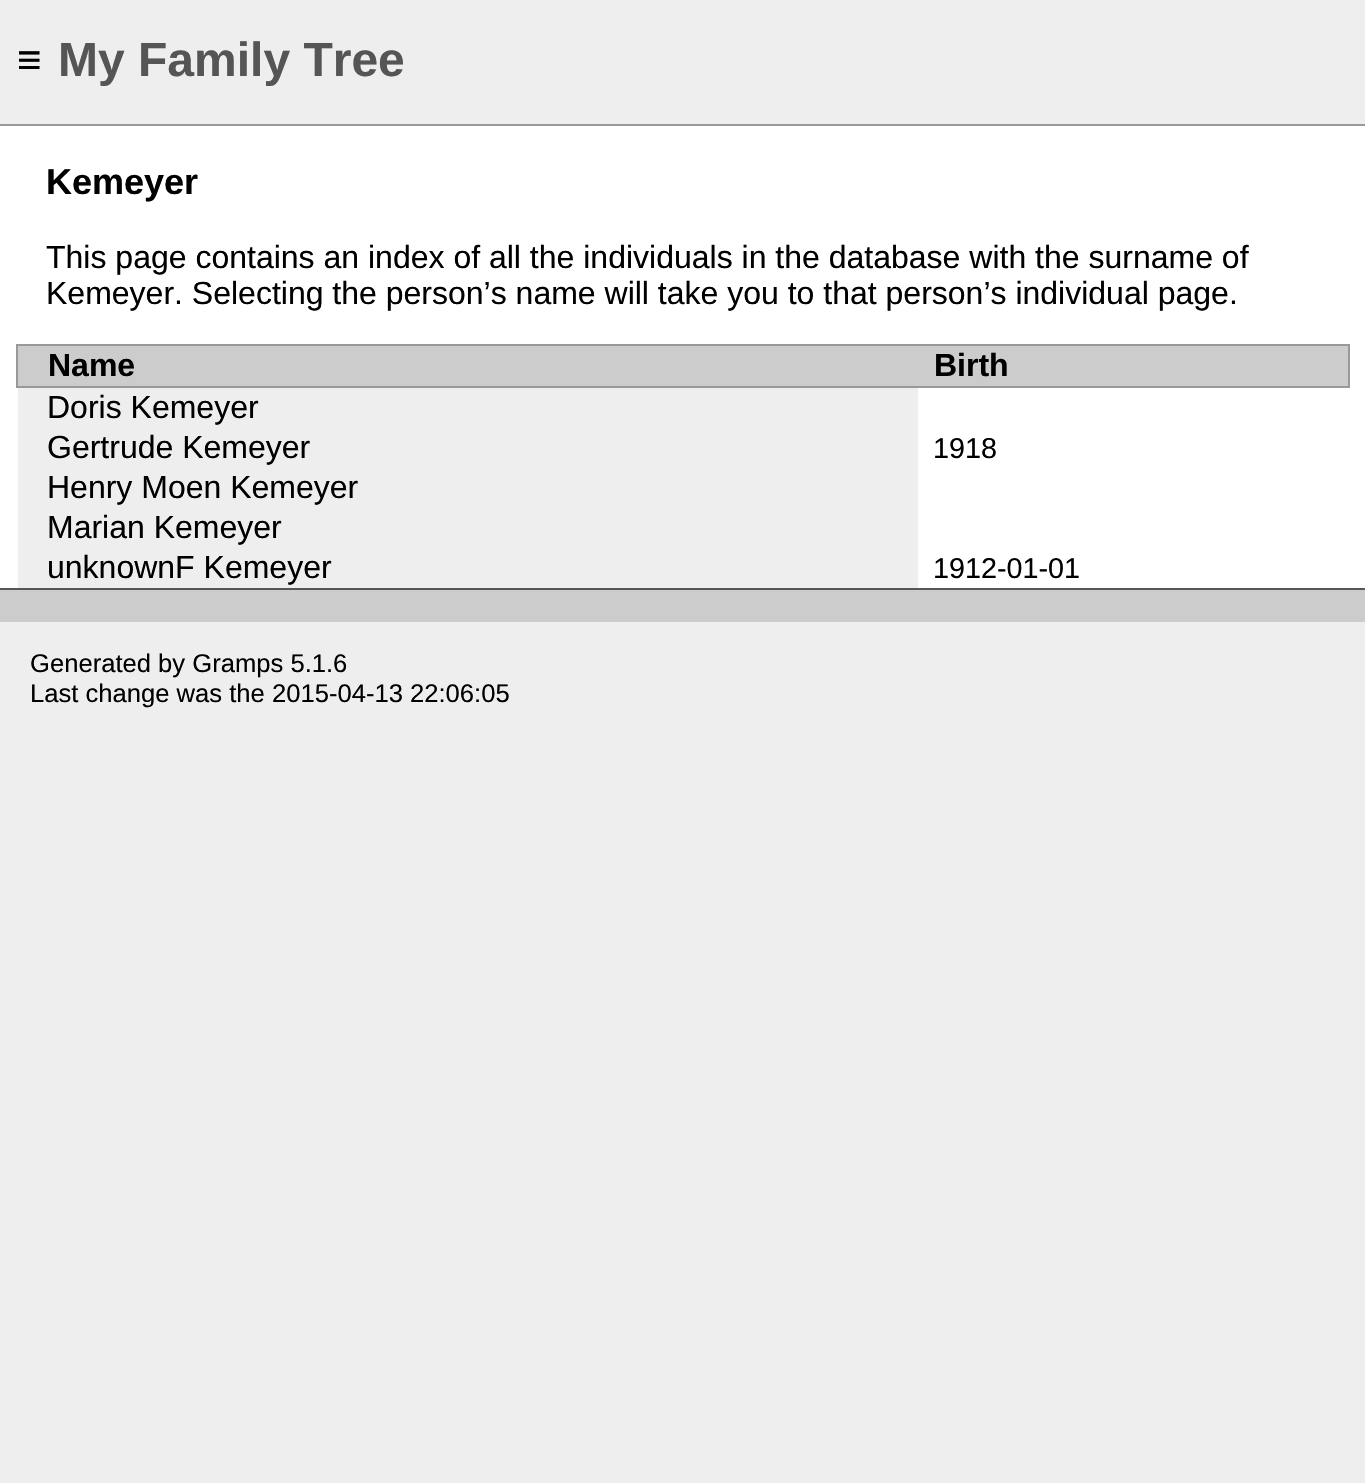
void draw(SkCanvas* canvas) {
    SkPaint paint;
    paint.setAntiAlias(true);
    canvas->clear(0xFFEEEEEE);
    SkFont font1(fontMgr->matchFamilyStyle("Liberation Sans", SkFontStyle::Normal()), 42);
    font1.setSubpixel(true);
    paint.setColor(0xFF000000);
    canvas->drawString("≡", 17, 74, font1, paint);
    SkFont font2(fontMgr->matchFamilyStyle("Liberation Sans", SkFontStyle::Bold()), 48);
    font2.setSubpixel(true);
    paint.setColor(0xFF555555);
    canvas->drawString("My Family Tree", 58, 76, font2, paint);
    paint.setColor(0xFFFFFFFF);
    canvas->drawRect(SkRect::MakeXYWH(0, 126, 1365, 462), paint);
    paint.setColor(0xFF999999);
    canvas->drawRect(SkRect::MakeXYWH(0, 124, 1365, 2), paint);
    SkFont font3(fontMgr->matchFamilyStyle("Liberation Sans", SkFontStyle::Bold()), 36);
    font3.setSubpixel(true);
    paint.setColor(0xFF000000);
    canvas->drawString("Kemeyer", 46, 194, font3, paint);
    SkFont font4(fontMgr->matchFamilyStyle("Liberation Sans", SkFontStyle::Normal()), 32);
    font4.setSubpixel(true);
    canvas->drawString("This page contains an index of all the individuals in the database with the surname of", 46, 268, font4, paint);
    canvas->drawString("Kemeyer. Selecting the person’s name will take you to that person’s individual page.", 46, 304, font4, paint);
    paint.setColor(0xFFCCCCCC);
    canvas->drawRect(SkRect::MakeXYWH(18, 346, 1330, 40), paint);
    paint.setColor(0xFF999999);
    canvas->drawRect(SkRect::MakeXYWH(16, 344, 1334, 2), paint);
    canvas->drawRect(SkRect::MakeXYWH(1348, 344, 2, 44), paint);
    canvas->drawRect(SkRect::MakeXYWH(16, 386, 1334, 2), paint);
    canvas->drawRect(SkRect::MakeXYWH(16, 344, 2, 44), paint);
    SkFont font5(fontMgr->matchFamilyStyle("Liberation Sans", SkFontStyle::Bold()), 32);
    font5.setSubpixel(true);
    paint.setColor(0xFF000000);
    canvas->drawString("Name", 48, 376, font5, paint);
    canvas->drawString("Birth", 934, 376, font5, paint);
    paint.setColor(0xFFEEEEEE);
    canvas->drawRect(SkRect::MakeXYWH(18, 388, 900, 200), paint);
    paint.setColor(0xFF000000);
    canvas->drawString("Doris Kemeyer", 47, 418, font4, paint);
    canvas->drawString("Gertrude Kemeyer", 47, 458, font4, paint);
    SkFont font6(fontMgr->matchFamilyStyle("Liberation Sans", SkFontStyle::Normal()), 28.75f);
    font6.setSubpixel(true);
    canvas->drawString("1918", 933, 458, font6, paint);
    canvas->drawString("Henry Moen Kemeyer", 47, 498, font4, paint);
    canvas->drawString("Marian Kemeyer", 47, 538, font4, paint);
    canvas->drawString("unknownF Kemeyer", 47, 578, font4, paint);
    canvas->drawString("1912-01-01", 933, 578, font6, paint);
    paint.setColor(0xFFCCCCCC);
    canvas->drawRect(SkRect::MakeXYWH(0, 590, 1365, 32), paint);
    paint.setColor(0xFF555555);
    canvas->drawRect(SkRect::MakeXYWH(0, 588, 1365, 2), paint);
    SkFont font7(fontMgr->matchFamilyStyle("Liberation Sans", SkFontStyle::Normal()), 25.6f);
    font7.setSubpixel(true);
    paint.setColor(0xFF000000);
    canvas->drawString("Generated by Gramps 5.1.6", 30, 672, font7, paint);
    canvas->drawString("Last change was the 2015-04-13 22:06:05", 30, 702, font7, paint);
}
